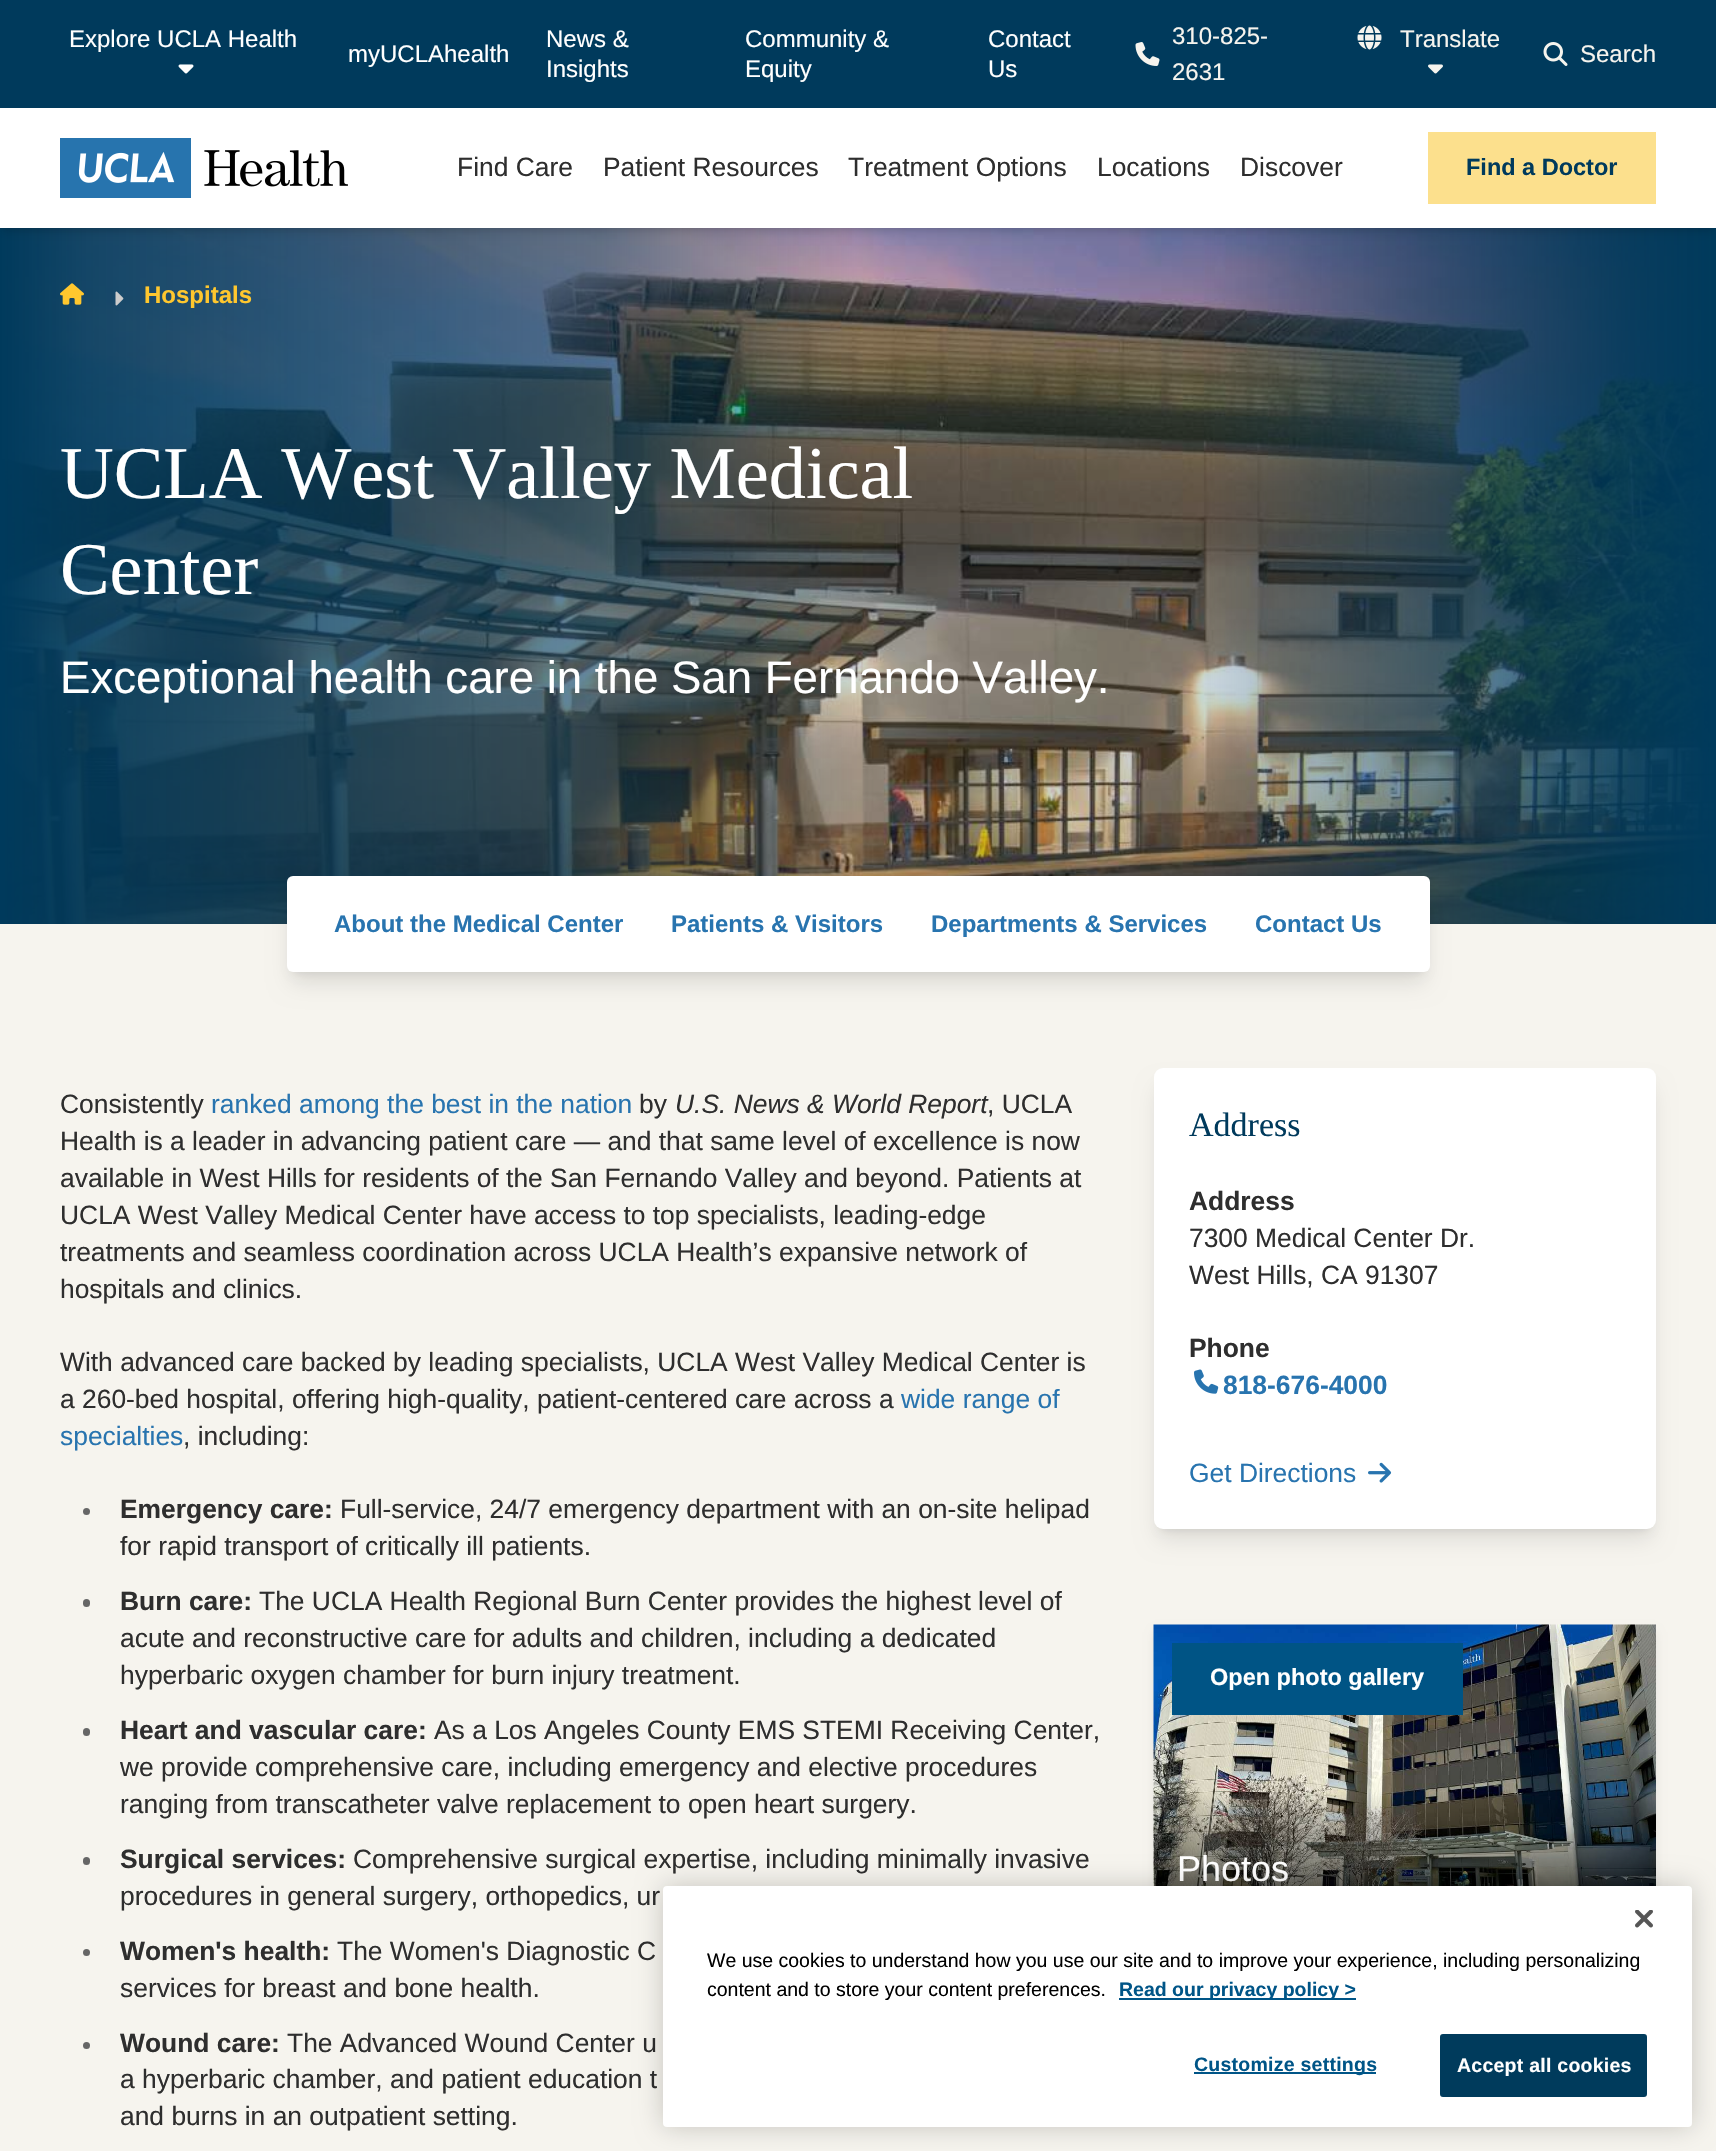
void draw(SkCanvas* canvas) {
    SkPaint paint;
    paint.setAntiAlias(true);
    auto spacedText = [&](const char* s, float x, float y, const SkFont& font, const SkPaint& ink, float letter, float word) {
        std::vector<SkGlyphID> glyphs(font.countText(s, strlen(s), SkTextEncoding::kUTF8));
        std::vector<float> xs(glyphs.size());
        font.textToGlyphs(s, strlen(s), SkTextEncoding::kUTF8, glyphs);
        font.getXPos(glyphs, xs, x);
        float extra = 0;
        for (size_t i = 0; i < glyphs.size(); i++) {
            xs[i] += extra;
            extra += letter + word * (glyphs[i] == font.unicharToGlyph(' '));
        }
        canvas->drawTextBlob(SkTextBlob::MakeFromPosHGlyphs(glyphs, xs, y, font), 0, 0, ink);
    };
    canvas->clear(0xFFF6F4EE);
    paint.setColor(0xFF003A5C);
    canvas->drawRect(SkRect::MakeXYWH(0, 0, 1716, 108), paint);
    SkFont font1(fontMgr->matchFamilyStyle("Liberation Sans", SkFontStyle::Normal()), 24);
    font1.setSubpixel(true);
    paint.setColor(0xFFFFFFFF);
    canvas->drawString("Explore UCLA Health", 69, 47, font1, paint);
    canvas->drawImageRect(SkImages::DeferredFromEncodedData(SkData::MakeFromFileName("img1.png")), SkRect::MakeXYWH(178, 64, 16, 10), SkSamplingOptions());
    canvas->drawString("myUCLAhealth", 348, 62, font1, paint);
    canvas->drawString("News &", 546, 47, font1, paint);
    canvas->drawString("Insights", 546, 77, font1, paint);
    canvas->drawString("Community &", 745, 47, font1, paint);
    canvas->drawString("Equity", 745, 77, font1, paint);
    canvas->drawString("Contact", 988, 47, font1, paint);
    canvas->drawString("Us", 988, 77, font1, paint);
    canvas->drawImageRect(SkImages::DeferredFromEncodedData(SkData::MakeFromFileName("img2.png")), SkRect::MakeXYWH(1135, 42, 25, 24), SkSamplingOptions());
    paint.setColor(0xFFF6F4EE);
    canvas->drawString("310-825-", 1172, 44, font1, paint);
    canvas->drawString("2631", 1172, 80, font1, paint);
    canvas->drawImageRect(SkImages::DeferredFromEncodedData(SkData::MakeFromFileName("img3.png")), SkRect::MakeXYWH(1357, 25, 25, 25), SkSamplingOptions());
    canvas->drawString("Translate", 1400, 47, font1, paint);
    canvas->drawImageRect(SkImages::DeferredFromEncodedData(SkData::MakeFromFileName("img4.png")), SkRect::MakeXYWH(1428, 64, 15, 10), SkSamplingOptions());
    canvas->drawImageRect(SkImages::DeferredFromEncodedData(SkData::MakeFromFileName("img5.png")), SkRect::MakeXYWH(1543, 42, 25, 24), SkSamplingOptions());
    canvas->drawString("Search", 1580, 62, font1, paint);
    canvas->drawImageRect(SkImages::DeferredFromEncodedData(SkData::MakeFromFileName("img7.png")), SkRect::MakeXYWH(0, 228, 1716, 696), SkSamplingOptions());
    paint.setColor(0x1A000000);
    paint.setMaskFilter(SkMaskFilter::MakeBlur(kNormal_SkBlurStyle, 3));
    canvas->drawRect(SkRect::MakeXYWH(3, 114, 1710, 114), paint);
    paint.setMaskFilter(nullptr);
    paint.setMaskFilter(SkMaskFilter::MakeBlur(kNormal_SkBlurStyle, 4.5f));
    canvas->drawRect(SkRect::MakeXYWH(2, 116, 1713, 117), paint);
    paint.setMaskFilter(nullptr);
    paint.setColor(0xFFFFFFFF);
    canvas->drawRect(SkRect::MakeXYWH(0, 108, 1716, 120), paint);
    canvas->drawImageRect(SkImages::DeferredFromEncodedData(SkData::MakeFromFileName("img6.png")), SkRect::MakeXYWH(60, 138, 288, 60), SkSamplingOptions());
    SkFont font2(fontMgr->matchFamilyStyle("Liberation Sans", SkFontStyle::Normal()), 26.4f);
    font2.setSubpixel(true);
    paint.setColor(0xFF2E2E2E);
    canvas->drawString("Find Care", 457, 176, font2, paint);
    canvas->drawString("Patient Resources", 603, 176, font2, paint);
    canvas->drawString("Treatment Options", 848, 176, font2, paint);
    canvas->drawString("Locations", 1097, 176, font2, paint);
    canvas->drawString("Discover", 1240, 176, font2, paint);
    paint.setColor(0xFFFCE08D);
    canvas->drawRect(SkRect::MakeXYWH(1428, 132, 228, 72), paint);
    SkFont font3(fontMgr->matchFamilyStyle("Liberation Sans", SkFontStyle::Bold()), 23.5f);
    font3.setSubpixel(true);
    paint.setColor(0xFF003A5C);
    canvas->drawString("Find a Doctor", 1466, 175, font3, paint);
    canvas->drawImageRect(SkImages::DeferredFromEncodedData(SkData::MakeFromFileName("img8.png")), SkRect::MakeXYWH(60, 283, 24, 22), SkSamplingOptions());
    canvas->drawImageRect(SkImages::DeferredFromEncodedData(SkData::MakeFromFileName("img9.png")), SkRect::MakeXYWH(115, 291, 9, 15), SkSamplingOptions());
    SkFont font4(fontMgr->matchFamilyStyle("Liberation Sans", SkFontStyle::Bold()), 24);
    font4.setSubpixel(true);
    paint.setColor(0xFFFFC72E);
    canvas->drawString("Hospitals", 144, 303, font4, paint);
    SkFont font5(fontMgr->matchFamilyStyle("Liberation Serif", SkFontStyle::Normal()), 74.4f);
    font5.setSubpixel(true);
    paint.setColor(0xFFFFFFFF);
    canvas->drawString("UCLA West Valley Medical", 60, 498, font5, paint);
    canvas->drawString("Center", 60, 594, font5, paint);
    SkFont font6(fontMgr->matchFamilyStyle("Liberation Sans", SkFontStyle::Normal()), 45.6f);
    font6.setSubpixel(true);
    canvas->drawString("Exceptional health care in the San Fernando Valley.", 60, 693, font6, paint);
    paint.setColor(0x1A000000);
    paint.setMaskFilter(SkMaskFilter::MakeBlur(kNormal_SkBlurStyle, 4.5f));
    canvas->drawRect(SkRect::MakeXYWH(293, 888, 1131, 84), paint);
    paint.setMaskFilter(nullptr);
    paint.setMaskFilter(SkMaskFilter::MakeBlur(kNormal_SkBlurStyle, 11));
    canvas->drawRoundRect(SkRect::MakeXYWH(291, 896, 1134, 87), 1.5f, 1.5f, paint);
    paint.setMaskFilter(nullptr);
    paint.setColor(0xFFFFFFFF);
    canvas->drawRoundRect(SkRect::MakeXYWH(287, 876, 1143, 96), 6, 6, paint);
    paint.setColor(0xFF2874AF);
    canvas->drawString("About the Medical Center", 334, 932, font4, paint);
    canvas->drawString("Patients & Visitors", 671, 932, font4, paint);
    canvas->drawString("Departments & Services", 931, 932, font4, paint);
    canvas->drawString("Contact Us", 1255, 932, font4, paint);
    paint.setColor(0xFF2E2E2E);
    canvas->drawString("Consistently", 60, 1113, font2, paint);
    paint.setColor(0xFF2874AF);
    canvas->drawString("ranked among the best in the nation", 211, 1113, font2, paint);
    paint.setColor(0xFF2E2E2E);
    canvas->drawString("by", 639, 1113, font2, paint);
    SkFont font7(fontMgr->matchFamilyStyle("Liberation Sans", SkFontStyle::Italic()), 26.4f);
    font7.setSubpixel(true);
    canvas->drawString("U.S. News & World Report", 675, 1113, font7, paint);
    canvas->drawString(", UCLA", 987, 1113, font2, paint);
    canvas->drawString("Health is a leader in advancing patient care — and that same level of excellence is now", 60, 1150, font2, paint);
    canvas->drawString("available in West Hills for residents of the San Fernando Valley and beyond. Patients at", 60, 1187, font2, paint);
    canvas->drawString("UCLA West Valley Medical Center have access to top specialists, leading-edge", 60, 1224, font2, paint);
    canvas->drawString("treatments and seamless coordination across UCLA Health’s expansive network of", 60, 1261, font2, paint);
    canvas->drawString("hospitals and clinics.", 60, 1298, font2, paint);
    canvas->drawString("With advanced care backed by leading specialists, UCLA West Valley Medical Center is", 60, 1371, font2, paint);
    canvas->drawString("a 260-bed hospital, offering high-quality, patient-centered care across a", 60, 1408, font2, paint);
    paint.setColor(0xFF2874AF);
    canvas->drawString("wide range of", 901, 1408, font2, paint);
    canvas->drawString("specialties", 60, 1445, font2, paint);
    paint.setColor(0xFF2E2E2E);
    canvas->drawString(", including:", 183, 1445, font2, paint);
    paint.setColor(0xFF666666);
    canvas->drawCircle(86.5f, 1511.5f, 3.5f, paint);
    SkFont font8(fontMgr->matchFamilyStyle("Liberation Sans", SkFontStyle::Bold()), 26.4f);
    font8.setSubpixel(true);
    paint.setColor(0xFF2E2E2E);
    canvas->drawString("Emergency care:", 120, 1518, font8, paint);
    canvas->drawString("Full-service, 24/7 emergency department with an on-site helipad", 340, 1518, font2, paint);
    canvas->drawString("for rapid transport of critically ill patients.", 120, 1555, font2, paint);
    paint.setColor(0xFF666666);
    canvas->drawRoundRect(SkRect::MakeXYWH(83, 1599, 7, 8), 3.5f, 3.5f, paint);
    paint.setColor(0xFF2E2E2E);
    canvas->drawString("Burn care:", 120, 1610, font8, paint);
    canvas->drawString("The UCLA Health Regional Burn Center provides the highest level of", 259, 1610, font2, paint);
    canvas->drawString("acute and reconstructive care for adults and children, including a dedicated", 120, 1647, font2, paint);
    canvas->drawString("hyperbaric oxygen chamber for burn injury treatment.", 120, 1684, font2, paint);
    paint.setColor(0xFF666666);
    canvas->drawRoundRect(SkRect::MakeXYWH(83, 1728, 7, 8), 3.5f, 3.5f, paint);
    paint.setColor(0xFF2E2E2E);
    canvas->drawString("Heart and vascular care:", 120, 1739, font8, paint);
    canvas->drawString("As a Los Angeles County EMS STEMI Receiving Center,", 434, 1739, font2, paint);
    canvas->drawString("we provide comprehensive care, including emergency and elective procedures", 120, 1776, font2, paint);
    canvas->drawString("ranging from transcatheter valve replacement to open heart surgery.", 120, 1813, font2, paint);
    paint.setColor(0xFF666666);
    canvas->drawRoundRect(SkRect::MakeXYWH(83, 1857, 7, 8), 3.5f, 3.5f, paint);
    paint.setColor(0xFF2E2E2E);
    canvas->drawString("Surgical services:", 120, 1868, font8, paint);
    canvas->drawString("Comprehensive surgical expertise, including minimally invasive", 353, 1868, font2, paint);
    canvas->drawString("procedures in general surgery, orthopedics, ur", 120, 1905, font2, paint);
    paint.setColor(0xFF666666);
    canvas->drawCircle(86.5f, 1952.5f, 3.5f, paint);
    paint.setColor(0xFF2E2E2E);
    canvas->drawString("Women's health:", 120, 1960, font8, paint);
    canvas->drawString("The Women's Diagnostic C", 337, 1960, font2, paint);
    canvas->drawString("services for breast and bone health.", 120, 1997, font2, paint);
    paint.setColor(0xFF666666);
    canvas->drawCircle(86.5f, 2045.5f, 3.5f, paint);
    paint.setColor(0xFF2E2E2E);
    canvas->drawString("Wound care:", 120, 2052, font8, paint);
    canvas->drawString("The Advanced Wound Center u", 287, 2052, font2, paint);
    canvas->drawString("a hyperbaric chamber, and patient education t", 120, 2088, font2, paint);
    canvas->drawString("and burns in an outpatient setting.", 120, 2125, font2, paint);
    paint.setColor(0x1A000000);
    paint.setMaskFilter(SkMaskFilter::MakeBlur(kNormal_SkBlurStyle, 4.5f));
    canvas->drawRoundRect(SkRect::MakeXYWH(1160, 1080, 490, 449), 3, 3, paint);
    paint.setMaskFilter(nullptr);
    paint.setMaskFilter(SkMaskFilter::MakeBlur(kNormal_SkBlurStyle, 11));
    canvas->drawRoundRect(SkRect::MakeXYWH(1158, 1088, 494, 451), 5, 5, paint);
    paint.setMaskFilter(nullptr);
    paint.setColor(0xFFFFFFFF);
    canvas->drawRoundRect(SkRect::MakeXYWH(1154, 1068, 502, 461), 9, 9, paint);
    SkFont font9(fontMgr->matchFamilyStyle("Liberation Serif", SkFontStyle::Normal()), 34);
    font9.setSubpixel(true);
    paint.setColor(0xFF003A5C);
    canvas->drawString("Address", 1189, 1136, font9, paint);
    paint.setColor(0xFF2E2E2E);
    canvas->drawString("Address", 1189, 1210, font8, paint);
    canvas->drawString("7300 Medical Center Dr.", 1189, 1247, font2, paint);
    canvas->drawString("West Hills, CA 91307", 1189, 1284, font2, paint);
    canvas->drawString("Phone", 1189, 1357, font8, paint);
    canvas->drawImageRect(SkImages::DeferredFromEncodedData(SkData::MakeFromFileName("img10.png")), SkRect::MakeXYWH(1194, 1369, 25, 25), SkSamplingOptions());
    paint.setColor(0xFF2874AF);
    canvas->drawString("818-676-4000", 1223, 1394, font8, paint);
    canvas->drawString("Get Directions", 1189, 1482, font2, paint);
    canvas->drawImageRect(SkImages::DeferredFromEncodedData(SkData::MakeFromFileName("img11.png")), SkRect::MakeXYWH(1368, 1462, 24, 21), SkSamplingOptions());
    paint.setColor(0x1A000000);
    paint.setMaskFilter(SkMaskFilter::MakeBlur(kNormal_SkBlurStyle, 4.5f));
    canvas->drawRect(SkRect::MakeXYWH(1155, 1632, 500, 332), paint);
    paint.setMaskFilter(nullptr);
    canvas->drawImageRect(SkImages::DeferredFromEncodedData(SkData::MakeFromFileName("img12.png")), SkRect::MakeXYWH(1153, 1624, 503, 262), SkSamplingOptions());
    paint.setColor(0xFF005485);
    canvas->drawRect(SkRect::MakeXYWH(1172, 1643, 291, 72), paint);
    paint.setColor(0xFFFFFFFF);
    canvas->drawString("Open photo gallery", 1210, 1685, font3, paint);
    SkFont font10(fontMgr->matchFamilyStyle("Liberation Sans", SkFontStyle::Normal()), 36);
    font10.setSubpixel(true);
    canvas->drawString("Photos", 1177, 1881, font10, paint);
    paint.setColor(0x33000000);
    paint.setMaskFilter(SkMaskFilter::MakeBlur(kNormal_SkBlurStyle, 13.5f));
    canvas->drawRoundRect(SkRect::MakeXYWH(663, 1886, 1029, 241), 4, 4, paint);
    paint.setMaskFilter(nullptr);
    paint.setColor(0xFFFFFFFF);
    canvas->drawRoundRect(SkRect::MakeXYWH(663, 1886, 1029, 241), 4, 4, paint);
    canvas->drawImageRect(SkImages::DeferredFromEncodedData(SkData::MakeFromFileName("img13.png")), SkRect::MakeXYWH(1635, 1910, 18, 18), SkSamplingOptions());
    SkFont font11(fontMgr->matchFamilyStyle("Liberation Sans", SkFontStyle::Normal()), 19.5f);
    font11.setSubpixel(true);
    paint.setColor(0xFF000000);
    canvas->drawString("We use cookies to understand how you use our site and to improve your experience, including personalizing", 707, 1967, font11, paint);
    canvas->drawString("content and to store your content preferences.", 707, 1996, font11, paint);
    paint.setColor(0xFF005587);
    canvas->drawRect(SkRect::MakeXYWH(1119, 1998, 237, 2), paint);
    SkFont font12(fontMgr->matchFamilyStyle("Liberation Sans", SkFontStyle::Bold()), 19.5f);
    font12.setSubpixel(true);
    canvas->drawString("Read our privacy policy >", 1119, 1996, font12, paint);
    canvas->drawRect(SkRect::MakeXYWH(1194, 2072, 182, 2), paint);
    spacedText("Customize settings", 1194, 2071, font12, paint, 0.25f, 0);
    paint.setColor(0xFF003B5C);
    canvas->drawRoundRect(SkRect::MakeXYWH(1441, 2035, 205, 61), 2, 2, paint);
    paint.setStyle(SkPaint::kStroke_Style);
    paint.setStrokeWidth(2);
    canvas->drawRoundRect(SkRect::MakeXYWH(1441, 2035, 205, 61), 2, 2, paint);
    paint.setStyle(SkPaint::kFill_Style);
    paint.setColor(0xFFFFFFFF);
    spacedText("Accept all cookies", 1457, 2072, font12, paint, 0.25f, 0);
}
